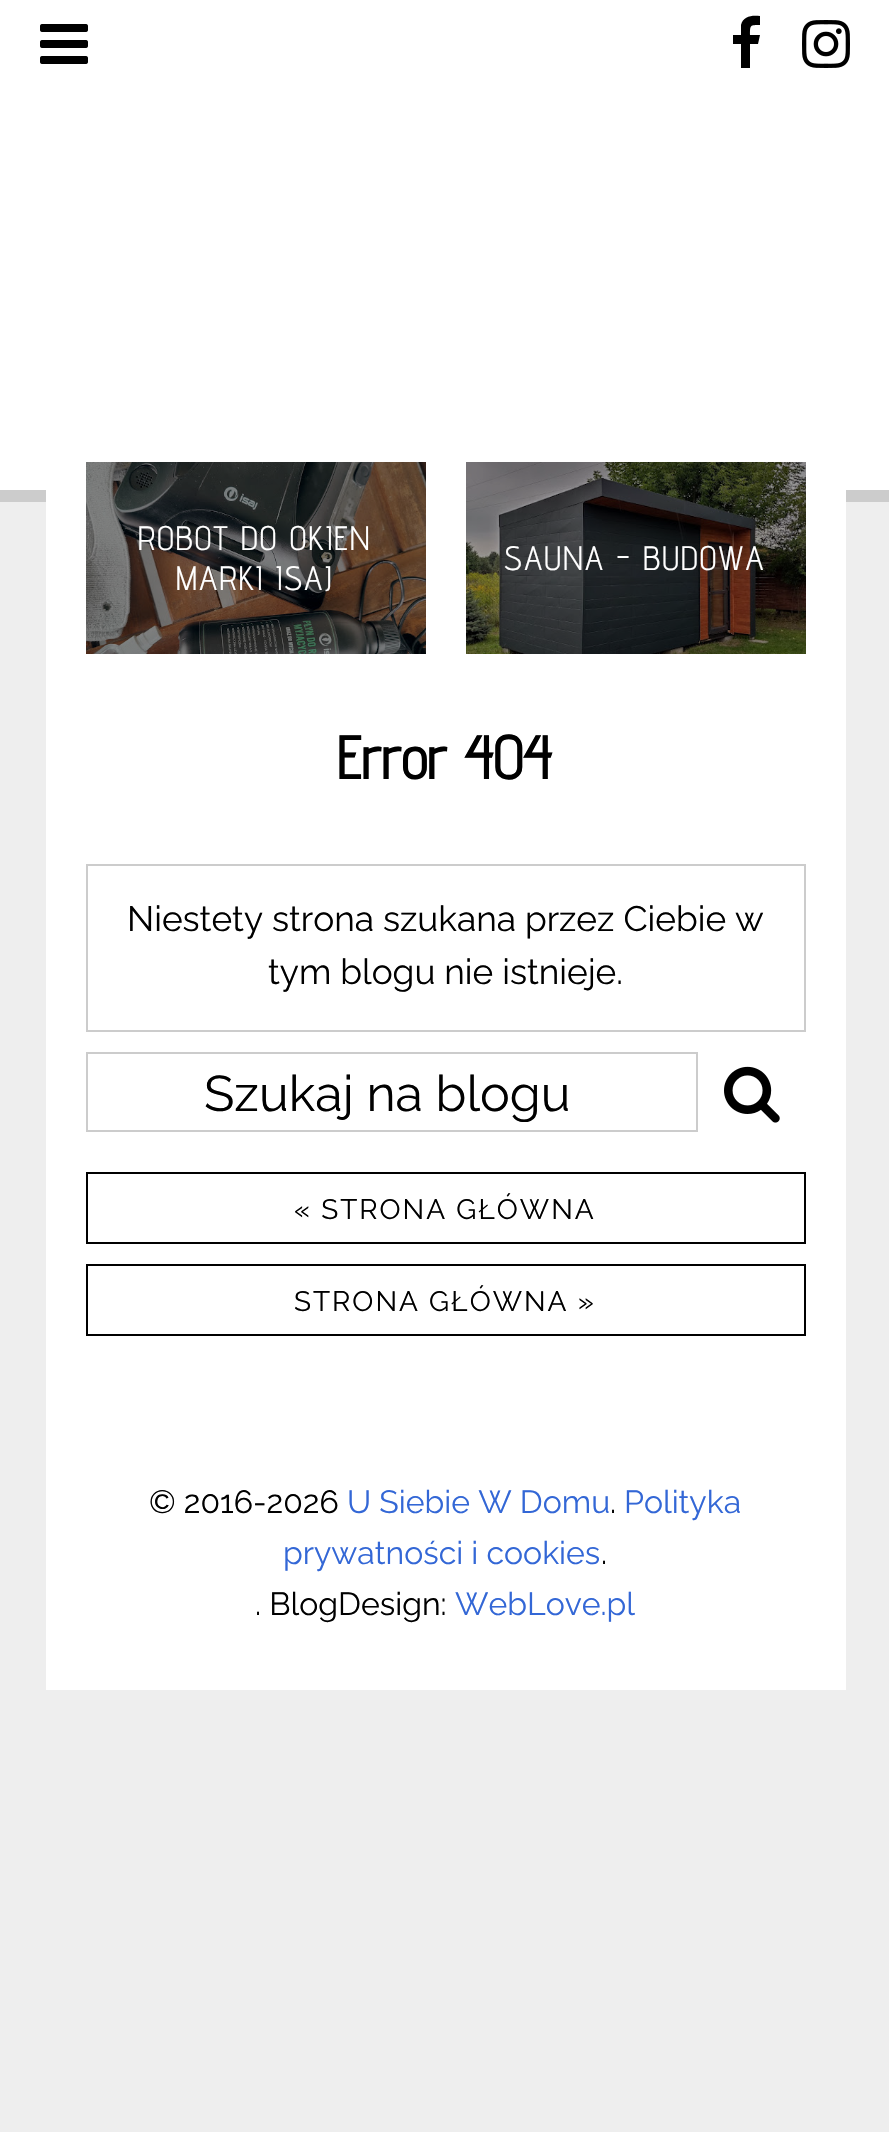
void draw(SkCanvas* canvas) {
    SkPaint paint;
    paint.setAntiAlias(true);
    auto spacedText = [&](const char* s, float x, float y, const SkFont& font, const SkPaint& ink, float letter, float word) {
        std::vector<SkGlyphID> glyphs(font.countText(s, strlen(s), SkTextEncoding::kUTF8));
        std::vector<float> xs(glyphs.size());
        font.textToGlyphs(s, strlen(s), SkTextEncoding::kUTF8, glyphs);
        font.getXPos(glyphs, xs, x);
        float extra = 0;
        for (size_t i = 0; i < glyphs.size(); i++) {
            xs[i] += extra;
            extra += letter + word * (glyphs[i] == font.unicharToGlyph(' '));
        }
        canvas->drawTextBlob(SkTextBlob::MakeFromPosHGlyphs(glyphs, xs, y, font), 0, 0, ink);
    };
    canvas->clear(0xFFEEEEEE);
    paint.setColor(0xFFFFFFFF);
    canvas->drawRect(SkRect::MakeXYWH(0, 0, 889, 490), paint);
    canvas->drawImageRect(SkImages::DeferredFromEncodedData(SkData::MakeFromFileName("img1.png")), SkRect::MakeXYWH(40, 24, 48, 40), SkSamplingOptions());
    paint.setColor(0xFF000000);
    canvas->drawPath(SkPathBuilder().moveTo(760, 16).lineTo(760, 25).cubicTo(750, 25, 750, 25, 750, 35).lineTo(760, 35).lineTo(758, 44).lineTo(750, 44).lineTo(750, 68).lineTo(741, 68).lineTo(741, 44).lineTo(733, 44).lineTo(733, 35).lineTo(741, 35).lineTo(741, 25).cubicTo(743, 16, 752, 15, 760, 16).close().detach(), paint);
    canvas->drawImageRect(SkImages::DeferredFromEncodedData(SkData::MakeFromFileName("img2.png")), SkRect::MakeXYWH(802, 20, 48, 48), SkSamplingOptions());
    paint.setColor(0xFFCCCCCC);
    canvas->drawRect(SkRect::MakeXYWH(0, 490, 889, 12), paint);
    paint.setColor(0xFFFFFFFF);
    canvas->drawRect(SkRect::MakeXYWH(46, 490, 800, 1200), paint);
    paint.setColor(0xFF000000);
    canvas->drawRect(SkRect::MakeXYWH(86, 462, 340, 192), paint);
    canvas->drawImageRect(SkImages::DeferredFromEncodedData(SkData::MakeFromFileName("img3.png")), SkRect::MakeXYWH(86, 462, 340, 192), SkSamplingOptions());
    SkFont font1(fontMgr->matchFamilyStyle("Advent Pro", SkFontStyle::Normal()), 33.75f);
    font1.setSubpixel(true);
    paint.setColor(0xFFFFFFFF);
    spacedText("ROBOT DO OKIEN", 138, 550, font1, paint, 2, 0);
    spacedText("MARKI ISAJ", 176, 590, font1, paint, 2, 0);
    paint.setColor(0xFF000000);
    canvas->drawRect(SkRect::MakeXYWH(466, 462, 340, 192), paint);
    canvas->drawImageRect(SkImages::DeferredFromEncodedData(SkData::MakeFromFileName("img4.png")), SkRect::MakeXYWH(466, 462, 340, 192), SkSamplingOptions());
    paint.setColor(0xFFFFFFFF);
    spacedText("SAUNA - BUDOWA", 504, 570, font1, paint, 2, 0);
    SkFont font2(fontMgr->matchFamilyStyle("Advent Pro", SkFontStyle::Bold()), 60);
    font2.setSubpixel(true);
    paint.setColor(0xFF000000);
    canvas->drawString("Error 404", 337, 779, font2, paint);
    paint.setStyle(SkPaint::kStroke_Style);
    paint.setStrokeWidth(2);
    paint.setColor(0xFFCCCCCC);
    canvas->drawRect(SkRect::MakeXYWH(87, 865, 718, 166), paint);
    SkFont font3(fontMgr->matchFamilyStyle("Raleway", SkFontStyle::Normal()), 35.25f);
    font3.setSubpixel(true);
    paint.setStyle(SkPaint::kFill_Style);
    paint.setColor(0xFF000000);
    canvas->drawString("Niestety strona szukana przez Ciebie w", 127, 931, font3, paint);
    canvas->drawString("tym blogu nie istnieje.", 268, 984, font3, paint);
    paint.setStyle(SkPaint::kStroke_Style);
    paint.setColor(0xFFCCCCCC);
    canvas->drawRect(SkRect::MakeXYWH(87, 1053, 610, 78), paint);
    canvas->save();
    canvas->clipRect(SkRect::MakeXYWH(92, 1062, 592, 60));
    SkFont font4(fontMgr->matchFamilyStyle("Raleway", SkFontStyle::Normal()), 50);
    font4.setSubpixel(true);
    paint.setStyle(SkPaint::kFill_Style);
    paint.setColor(0xFF000000);
    canvas->drawString("Szukaj na blogu", 204, 1111, font4, paint);
    canvas->restore();
    canvas->drawImageRect(SkImages::DeferredFromEncodedData(SkData::MakeFromFileName("img5.png")), SkRect::MakeXYWH(724, 1066, 56, 57), SkSamplingOptions());
    paint.setStyle(SkPaint::kStroke_Style);
    canvas->drawRect(SkRect::MakeXYWH(87, 1173, 718, 70), paint);
    SkFont font5(fontMgr->matchFamilyStyle("Raleway", SkFontStyle::Normal()), 28);
    font5.setSubpixel(true);
    paint.setStyle(SkPaint::kFill_Style);
    spacedText("« STRONA GŁÓWNA", 294, 1219, font5, paint, 2, 0);
    paint.setStyle(SkPaint::kStroke_Style);
    canvas->drawRect(SkRect::MakeXYWH(87, 1265, 718, 70), paint);
    paint.setStyle(SkPaint::kFill_Style);
    spacedText("STRONA GŁÓWNA »", 294, 1311, font5, paint, 2, 0);
    SkFont font6(fontMgr->matchFamilyStyle("Raleway", SkFontStyle::Normal()), 32);
    font6.setSubpixel(true);
    canvas->drawString("© 2016-2026", 149, 1513, font6, paint);
    paint.setColor(0xFF3367D6);
    canvas->drawString("U Siebie W Domu", 347, 1513, font6, paint);
    paint.setColor(0xFF000000);
    canvas->drawString(".", 610, 1513, font6, paint);
    paint.setColor(0xFF3367D6);
    canvas->drawString("Polityka", 624, 1513, font6, paint);
    canvas->drawString("prywatności i cookies", 283, 1564, font6, paint);
    paint.setColor(0xFF000000);
    canvas->drawString(".", 601, 1564, font6, paint);
    canvas->drawString(". BlogDesign:", 255, 1615, font6, paint);
    paint.setColor(0xFF3367D6);
    canvas->drawString("WebLove.pl", 455, 1615, font6, paint);
}
